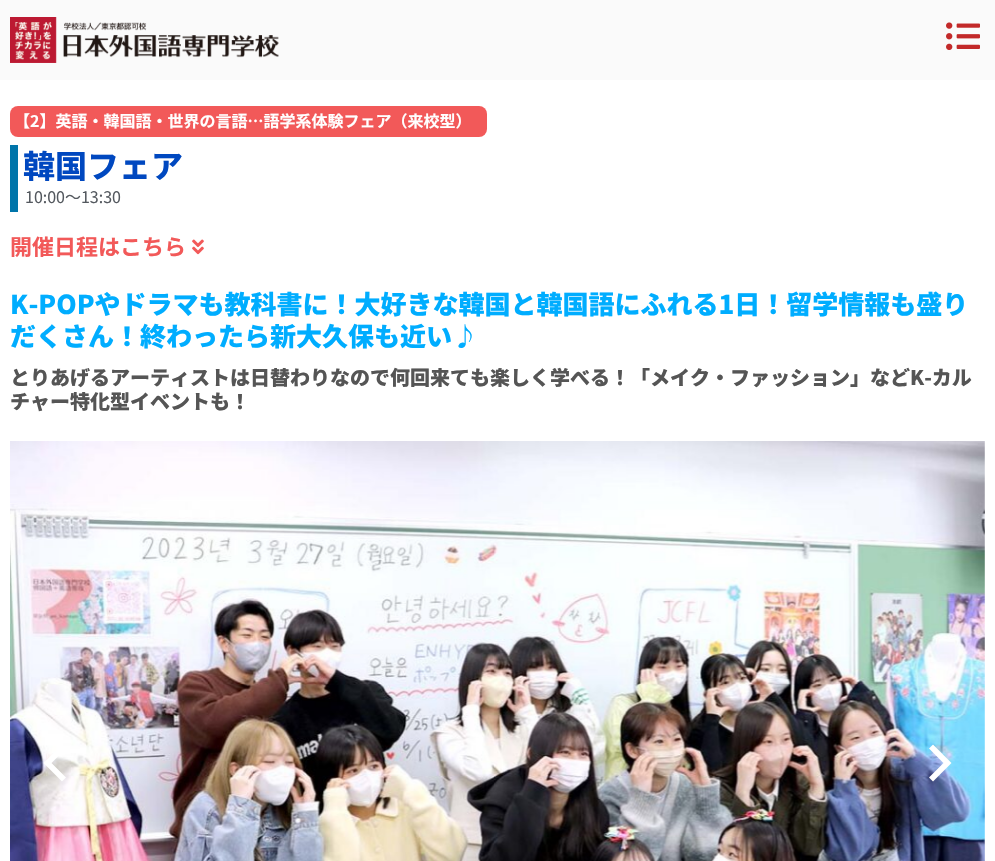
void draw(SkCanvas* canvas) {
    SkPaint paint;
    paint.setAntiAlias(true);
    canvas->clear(0xFFFFFFFF);
    paint.setColor(0xFFFAFAFA);
    canvas->drawRect(SkRect::MakeXYWH(0, 0, 995, 80), paint);
    canvas->drawImageRect(SkImages::DeferredFromEncodedData(SkData::MakeFromFileName("img1.png")), SkRect::MakeXYWH(10, 17, 269, 46), SkSamplingOptions());
    canvas->drawImageRect(SkImages::DeferredFromEncodedData(SkData::MakeFromFileName("img2.png")), SkRect::MakeXYWH(946, 22, 34, 28), SkSamplingOptions());
    paint.setColor(0xFFF25959);
    canvas->drawRoundRect(SkRect::MakeXYWH(10, 106, 477, 31), 8, 8, paint);
    SkFont font1(fontMgr->matchFamilyStyle("Noto Sans JP", SkFontStyle::Bold()), 16);
    font1.setSubpixel(true);
    paint.setColor(0xFFFFFFFF);
    canvas->drawString("【2】英語・韓国語・世界の言語…語学系体験フェア（来校型）", 14, 127, font1, paint);
    paint.setColor(0xFF0075AA);
    canvas->drawRect(SkRect::MakeXYWH(10, 145, 8, 67), paint);
    SkFont font2(fontMgr->matchFamilyStyle("Noto Sans JP", SkFontStyle(800, SkFontStyle::kNormal_Width, SkFontStyle::kUpright_Slant)), 32);
    font2.setSubpixel(true);
    paint.setColor(0xFF0048C0);
    canvas->drawString("韓国フェア", 23, 178, font2, paint);
    SkFont font3(fontMgr->matchFamilyStyle("Noto Sans JP", SkFontStyle::Normal()), 16);
    font3.setSubpixel(true);
    paint.setColor(0xFF54595F);
    canvas->drawString("10:00～13:30", 25, 203, font3, paint);
    SkFont font4(fontMgr->matchFamilyStyle("Noto Sans JP", SkFontStyle::Bold()), 22);
    font4.setSubpixel(true);
    paint.setColor(0xFFF25959);
    canvas->drawString("開催日程はこちら", 10, 255, font4, paint);
    canvas->drawImageRect(SkImages::DeferredFromEncodedData(SkData::MakeFromFileName("img3.png")), SkRect::MakeXYWH(192, 239, 12, 16), SkSamplingOptions());
    SkFont font5(fontMgr->matchFamilyStyle("Noto Sans JP", SkFontStyle(900, SkFontStyle::kNormal_Width, SkFontStyle::kUpright_Slant)), 26);
    font5.setSubpixel(true);
    paint.setColor(0xFF00ADFF);
    canvas->drawString("K-POPやドラマも教科書に！大好きな韓国と韓国語にふれる1日！留学情報も盛り", 10, 314, font5, paint);
    canvas->drawString("だくさん！終わったら新大久保も近い♪", 10, 346, font5, paint);
    SkFont font6(fontMgr->matchFamilyStyle("Noto Sans JP", SkFontStyle(900, SkFontStyle::kNormal_Width, SkFontStyle::kUpright_Slant)), 20);
    font6.setSubpixel(true);
    paint.setColor(0xFF555555);
    canvas->drawString("とりあげるアーティストは日替わりなので何回来ても楽しく学べる！「メイク・ファッション」などK-カル", 10, 385, font6, paint);
    canvas->drawString("チャー特化型イベントも！", 10, 409, font6, paint);
    canvas->drawImageRect(SkImages::DeferredFromEncodedData(SkData::MakeFromFileName("img4.png")), SkRect::MakeXYWH(10, 441, 975, 420), SkSamplingOptions());
    paint.setColor(0xFFFFFFFF);
    canvas->drawPath(SkPathBuilder().moveTo(51.5f, 763).lineTo(66, 777.5f).lineTo(62, 781.5f).lineTo(43.5f, 763).lineTo(62, 744.5f).lineTo(66, 748.5f).close().detach(), paint);
    canvas->drawPath(SkPathBuilder().moveTo(943.5f, 763).lineTo(929, 748.5f).lineTo(933, 744.5f).lineTo(951.5f, 763).lineTo(933, 781.5f).lineTo(929, 777.5f).close().detach(), paint);
}
